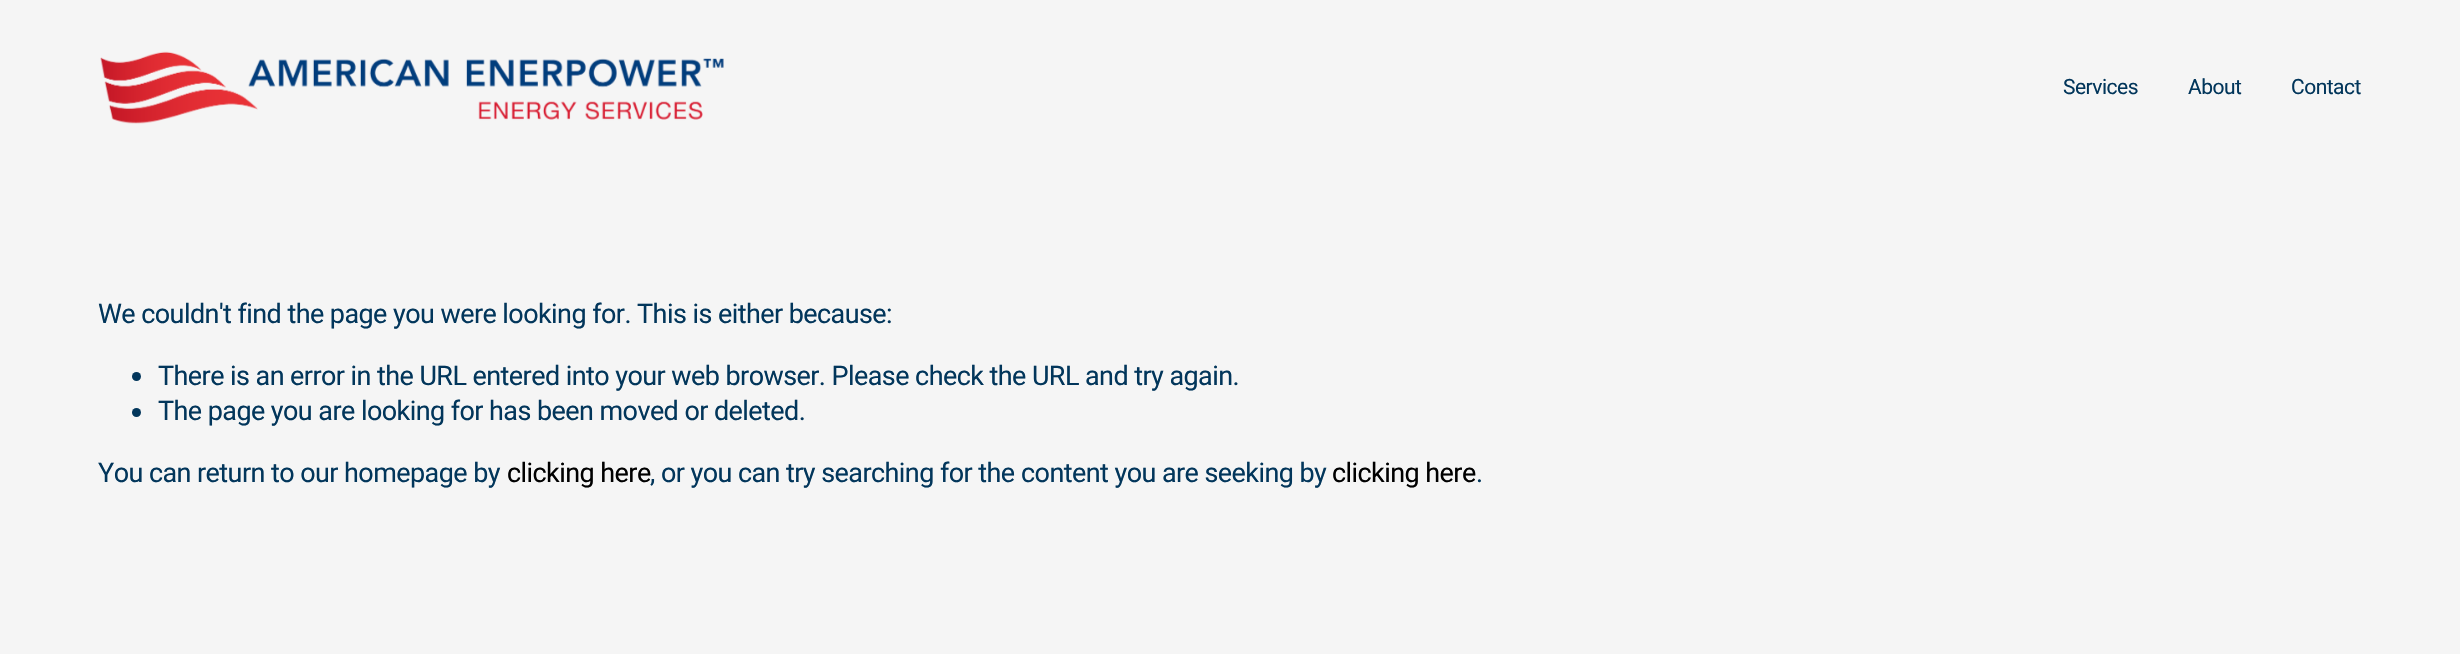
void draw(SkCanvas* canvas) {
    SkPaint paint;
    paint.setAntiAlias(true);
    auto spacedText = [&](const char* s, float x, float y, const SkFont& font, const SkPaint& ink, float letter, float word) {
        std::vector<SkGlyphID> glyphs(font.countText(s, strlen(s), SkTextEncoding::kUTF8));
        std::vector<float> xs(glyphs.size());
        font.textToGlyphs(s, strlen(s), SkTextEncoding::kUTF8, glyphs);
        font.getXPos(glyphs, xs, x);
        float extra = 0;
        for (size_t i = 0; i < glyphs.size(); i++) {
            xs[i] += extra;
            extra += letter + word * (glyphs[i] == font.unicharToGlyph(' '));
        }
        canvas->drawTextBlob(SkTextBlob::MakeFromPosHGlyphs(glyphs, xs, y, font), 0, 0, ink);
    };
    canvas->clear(0xFFF5F5F5);
    canvas->drawImageRect(SkImages::DeferredFromEncodedData(SkData::MakeFromFileName("img1.png")), SkRect::MakeXYWH(100, 51, 624, 73), SkSamplingOptions());
    SkFont font1(fontMgr->matchFamilyStyle("Roboto", SkFontStyle::Normal()), 21);
    font1.setSubpixel(true);
    paint.setColor(0xFF02365B);
    spacedText("Services", 2063, 94, font1, paint, -0.5f, 0);
    spacedText("About", 2188, 94, font1, paint, -0.5f, 0);
    spacedText("Contact", 2291, 94, font1, paint, -0.5f, 0);
    SkFont font2(fontMgr->matchFamilyStyle("Roboto", SkFontStyle::Normal()), 26.95f);
    font2.setSubpixel(true);
    spacedText("We couldn't find the page you were looking for. This is either because:", 98, 323, font2, paint, -0.55f, 0);
    canvas->drawCircle(136.5f, 376.5f, 4.5f, paint);
    spacedText("There is an error in the URL entered into your web browser. Please check the URL and try again.", 158, 385, font2, paint, -0.55f, 0);
    canvas->drawCircle(136.5f, 412.5f, 4.5f, paint);
    spacedText("The page you are looking for has been moved or deleted.", 158, 420, font2, paint, -0.55f, 0);
    spacedText("You can return to our homepage by", 98, 482, font2, paint, -0.55f, 0);
    paint.setColor(0xFF000000);
    spacedText("clicking here", 507, 482, font2, paint, -0.55f, 0);
    paint.setColor(0xFF02365B);
    spacedText(", or you can try searching for the", 650, 482, font2, paint, -0.55f, 0);
    spacedText("content you are seeking by", 1021, 482, font2, paint, -0.55f, 0);
    paint.setColor(0xFF000000);
    spacedText("clicking here", 1332, 482, font2, paint, -0.55f, 0);
    paint.setColor(0xFF02365B);
    spacedText(".", 1476, 482, font2, paint, -0.55f, 0);
}
